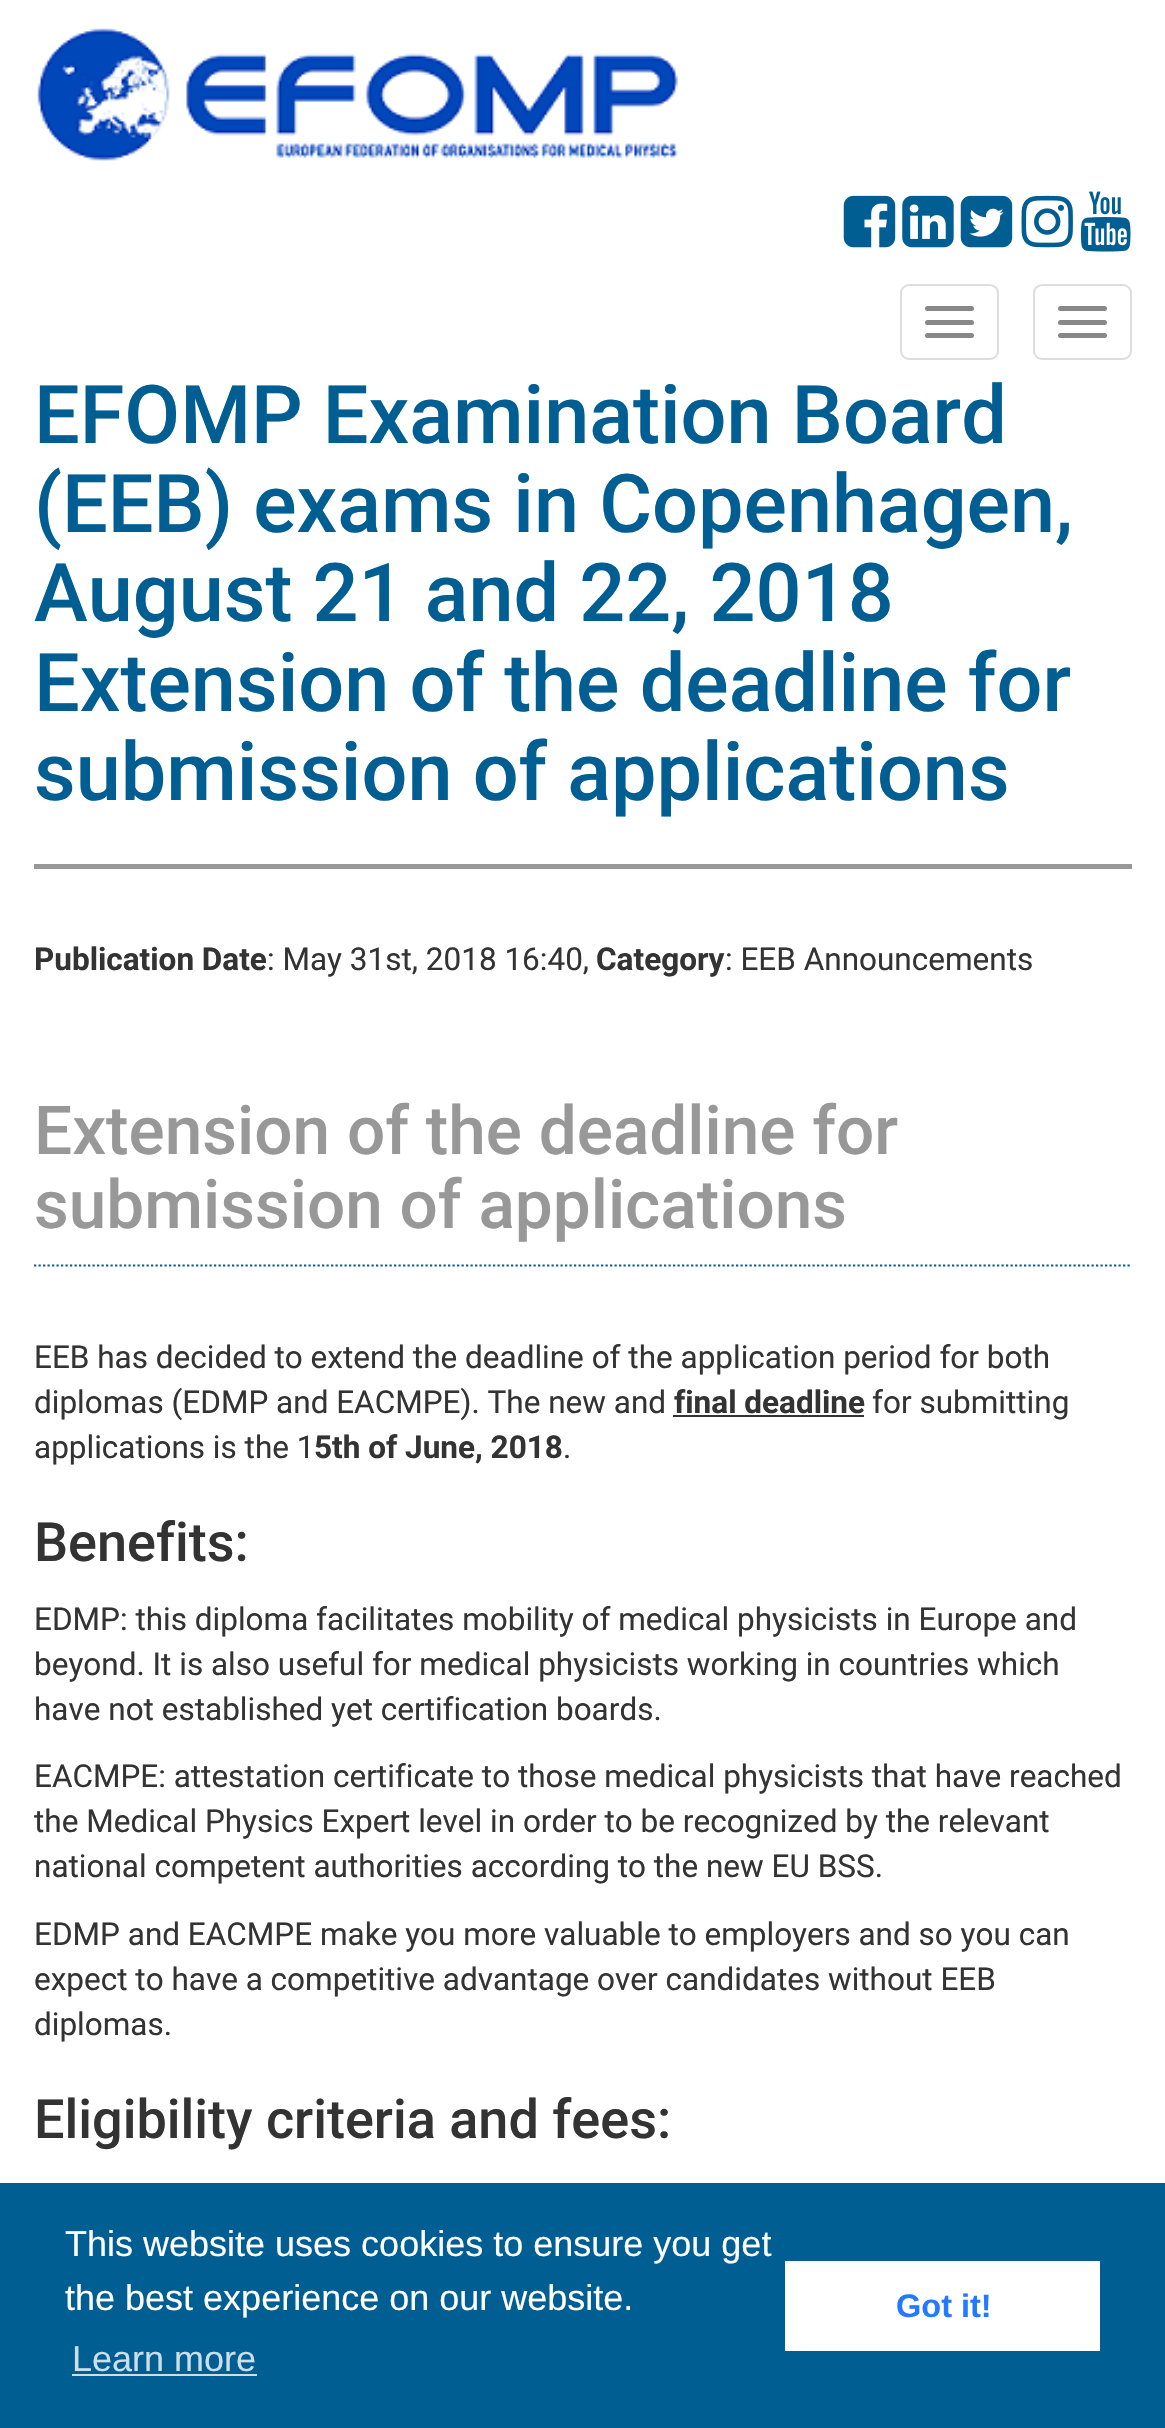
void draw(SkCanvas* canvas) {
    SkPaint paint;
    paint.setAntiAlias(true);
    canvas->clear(0xFFFFFFFF);
    canvas->drawImageRect(SkImages::DeferredFromEncodedData(SkData::MakeFromFileName("img1.png")), SkRect::MakeXYWH(37, 28, 641, 133), SkSamplingOptions());
    canvas->drawImageRect(SkImages::DeferredFromEncodedData(SkData::MakeFromFileName("img2.png")), SkRect::MakeXYWH(843, 195, 53, 53), SkSamplingOptions());
    canvas->drawImageRect(SkImages::DeferredFromEncodedData(SkData::MakeFromFileName("img3.png")), SkRect::MakeXYWH(902, 195, 52, 53), SkSamplingOptions());
    canvas->drawImageRect(SkImages::DeferredFromEncodedData(SkData::MakeFromFileName("img4.png")), SkRect::MakeXYWH(960, 195, 53, 53), SkSamplingOptions());
    canvas->drawImageRect(SkImages::DeferredFromEncodedData(SkData::MakeFromFileName("img5.png")), SkRect::MakeXYWH(1021, 195, 52, 53), SkSamplingOptions());
    canvas->drawImageRect(SkImages::DeferredFromEncodedData(SkData::MakeFromFileName("img6.png")), SkRect::MakeXYWH(1080, 191, 51, 61), SkSamplingOptions());
    paint.setStyle(SkPaint::kStroke_Style);
    paint.setStrokeWidth(2);
    paint.setColor(0xFFDDDDDD);
    canvas->drawRoundRect(SkRect::MakeXYWH(901, 285, 97, 74), 8, 8, paint);
    paint.setStyle(SkPaint::kFill_Style);
    paint.setColor(0xFF888888);
    canvas->drawRoundRect(SkRect::MakeXYWH(925, 306, 49, 5), 2.5f, 2.5f, paint);
    canvas->drawRoundRect(SkRect::MakeXYWH(925, 320, 49, 5), 2.5f, 2.5f, paint);
    canvas->drawRoundRect(SkRect::MakeXYWH(925, 333, 49, 5), 2.5f, 2.5f, paint);
    paint.setStyle(SkPaint::kStroke_Style);
    paint.setColor(0xFFDDDDDD);
    canvas->drawRoundRect(SkRect::MakeXYWH(1034, 285, 97, 74), 8, 8, paint);
    paint.setStyle(SkPaint::kFill_Style);
    paint.setColor(0xFF888888);
    canvas->drawRoundRect(SkRect::MakeXYWH(1058, 306, 49, 5), 2.5f, 2.5f, paint);
    canvas->drawRoundRect(SkRect::MakeXYWH(1058, 320, 49, 5), 2.5f, 2.5f, paint);
    canvas->drawRoundRect(SkRect::MakeXYWH(1058, 333, 49, 5), 2.5f, 2.5f, paint);
    paint.setColor(0xFF989898);
    canvas->drawRect(SkRect::MakeXYWH(34, 864, 1098, 5), paint);
    SkFont font1(fontMgr->matchFamilyStyle("Roboto", SkFontStyle(500, SkFontStyle::kNormal_Width, SkFontStyle::kUpright_Slant)), 81);
    font1.setSubpixel(true);
    paint.setColor(0xFF015E93);
    canvas->drawString("EFOMP Examination Board", 34, 443, font1, paint);
    canvas->drawString("(EEB) exams in Copenhagen,", 34, 532, font1, paint);
    canvas->drawString("August 21 and 22, 2018", 34, 621, font1, paint);
    canvas->drawString("Extension of the deadline for", 34, 711, font1, paint);
    canvas->drawString("submission of applications", 34, 800, font1, paint);
    SkFont font2(fontMgr->matchFamilyStyle("Roboto", SkFontStyle::Bold()), 31.5f);
    font2.setSubpixel(true);
    paint.setColor(0xFF333333);
    canvas->drawString("Publication Date", 34, 970, font2, paint);
    SkFont font3(fontMgr->matchFamilyStyle("Roboto", SkFontStyle::Normal()), 31.5f);
    font3.setSubpixel(true);
    canvas->drawString(": May 31st, 2018 16:40,", 267, 970, font3, paint);
    canvas->drawString("Category", 596, 970, font2, paint);
    canvas->drawString(": EEB Announcements", 725, 970, font3, paint);
    paint.setStyle(SkPaint::kStroke_Style);
    paint.setStrokeWidth(2.2f);
    paint.setColor(0xFF015E93);
    paint.setPathEffect(SkDashPathEffect::Make({{2.25f, 2.25f}}, 0));
    canvas->drawPath(SkPathBuilder().moveTo(34, 1265.5f).lineTo(1132, 1265.5f).detach(), paint);
    paint.setPathEffect(nullptr);
    SkFont font4(fontMgr->matchFamilyStyle("Roboto", SkFontStyle(500, SkFontStyle::kNormal_Width, SkFontStyle::kUpright_Slant)), 67.5f);
    font4.setSubpixel(true);
    paint.setStyle(SkPaint::kFill_Style);
    paint.setColor(0xFF989898);
    canvas->drawString("Extension of the deadline for", 34, 1154, font4, paint);
    canvas->drawString("submission of applications", 34, 1228, font4, paint);
    paint.setColor(0xFF333333);
    canvas->drawString("EEB has decided to extend the deadline of the application period for both", 34, 1368, font3, paint);
    canvas->drawString("diplomas (EDMP and EACMPE). The new and", 34, 1413, font3, paint);
    canvas->drawString("final deadline", 674, 1413, font2, paint);
    canvas->drawRect(SkRect::MakeXYWH(673, 1415, 191, 2), paint);
    canvas->drawString("for submitting", 872, 1413, font3, paint);
    canvas->drawString("applications is the 1", 34, 1458, font3, paint);
    canvas->drawString("5th of June, 2018", 314, 1458, font2, paint);
    canvas->drawString(".", 563, 1458, font3, paint);
    SkFont font5(fontMgr->matchFamilyStyle("Roboto", SkFontStyle(500, SkFontStyle::kNormal_Width, SkFontStyle::kUpright_Slant)), 54);
    font5.setSubpixel(true);
    canvas->drawString("Benefits:", 34, 1561, font5, paint);
    canvas->drawString("EDMP: this diploma facilitates mobility of medical physicists in Europe and", 34, 1630, font3, paint);
    canvas->drawString("beyond. It is also useful for medical physicists working in countries which", 34, 1675, font3, paint);
    canvas->drawString("have not established yet certification boards.", 34, 1720, font3, paint);
    canvas->drawString("EACMPE: attestation certificate to those medical physicists that have reached", 34, 1787, font3, paint);
    canvas->drawString("the Medical Physics Expert level in order to be recognized by the relevant", 34, 1832, font3, paint);
    canvas->drawString("national competent authorities according to the new EU BSS.", 34, 1877, font3, paint);
    canvas->drawString("EDMP and EACMPE make you more valuable to employers and so you can", 34, 1945, font3, paint);
    canvas->drawString("expect to have a competitive advantage over candidates without EEB", 34, 1990, font3, paint);
    canvas->drawString("diplomas.", 34, 2035, font3, paint);
    canvas->drawString("Eligibility criteria and fees:", 34, 2138, font5, paint);
    paint.setColor(0xFF015E93);
    canvas->drawRect(SkRect::MakeXYWH(0, 2183, 1165, 245), paint);
    SkFont font6(fontMgr->matchFamilyStyle("Liberation Sans", SkFontStyle::Normal()), 36);
    font6.setSubpixel(true);
    paint.setColor(0xFFFFFFFF);
    canvas->drawString("This website uses cookies to ensure you get", 65, 2256, font6, paint);
    canvas->drawString("the best experience on our website.", 65, 2310, font6, paint);
    paint.setColor(0xFFCCDFE9);
    canvas->drawString("Learn more", 72, 2371, font6, paint);
    canvas->drawRect(SkRect::MakeXYWH(72, 2374, 185, 2), paint);
    paint.setColor(0xFFFFFFFF);
    canvas->drawRect(SkRect::MakeXYWH(785, 2261, 315, 90), paint);
    SkFont font7(fontMgr->matchFamilyStyle("Liberation Sans", SkFontStyle::Bold()), 32.5f);
    font7.setSubpixel(true);
    paint.setColor(0xFF237AFC);
    canvas->drawString("Got it!", 896, 2317, font7, paint);
}
